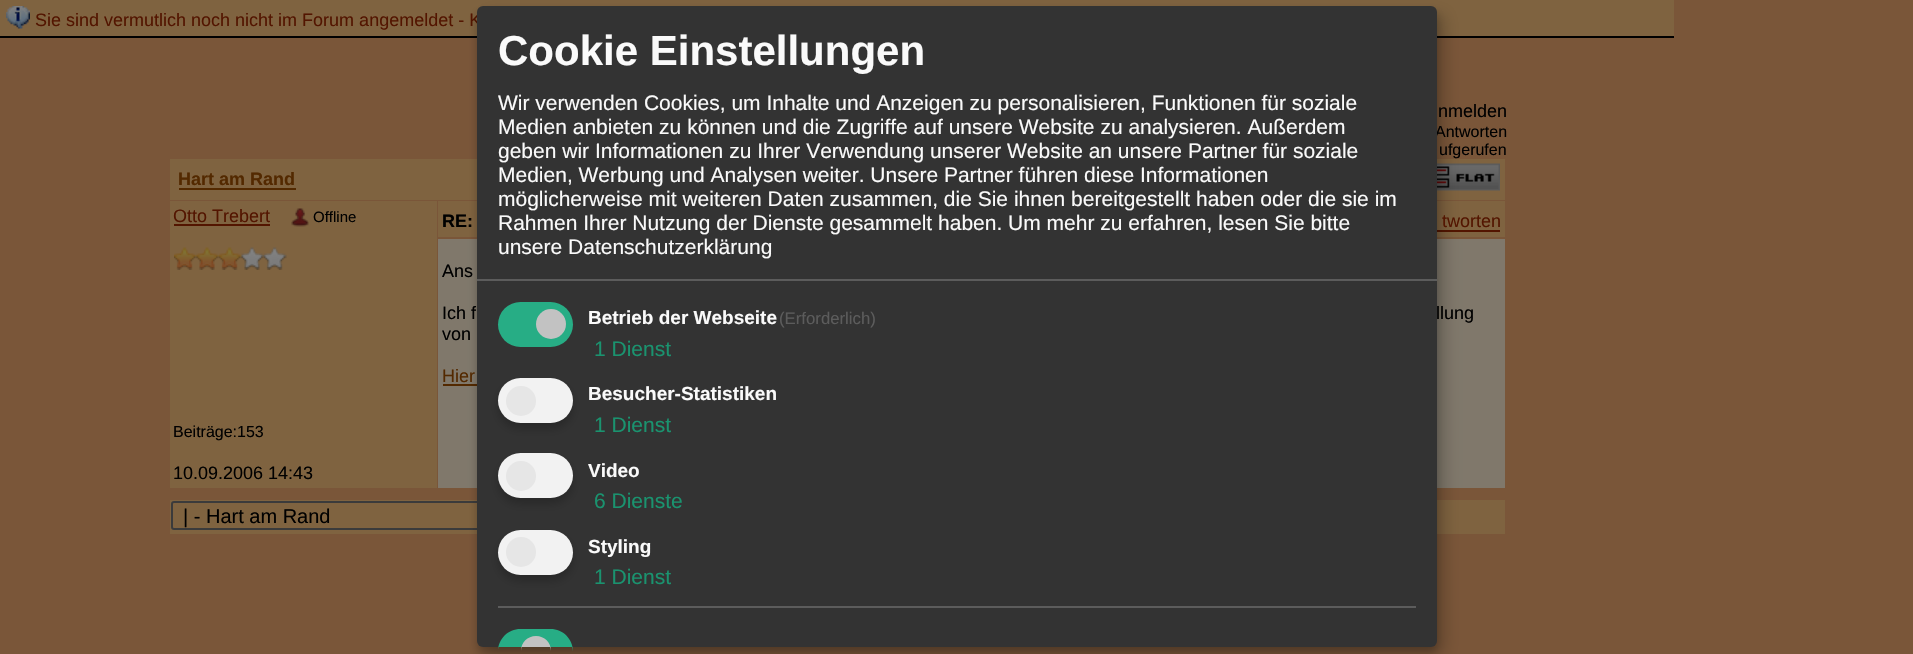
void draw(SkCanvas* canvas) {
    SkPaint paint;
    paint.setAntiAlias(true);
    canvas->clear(0xFF7A5639);
    paint.setColor(0xFF7F6340);
    canvas->drawRect(SkRect::MakeXYWH(0, 0, 1674, 36), paint);
    paint.setColor(0xFF000000);
    canvas->drawRect(SkRect::MakeXYWH(0, 36, 1674, 2), paint);
    canvas->drawImageRect(SkImages::DeferredFromEncodedData(SkData::MakeFromFileName("img1.png")), SkRect::MakeXYWH(6, 6, 24, 23), SkSamplingOptions());
    SkFont font1(fontMgr->matchFamilyStyle("Liberation Sans", SkFontStyle::Normal()), 18);
    font1.setSubpixel(true);
    paint.setColor(0xFF531500);
    canvas->drawString("Sie sind vermutlich noch nicht im Forum angemeldet - K", 35, 26, font1, paint);
    paint.setColor(0xFF7F6340);
    canvas->drawRect(SkRect::MakeXYWH(170, 159, 1335, 41), paint);
    canvas->drawImageRect(SkImages::DeferredFromEncodedData(SkData::MakeFromFileName("img2.png")), SkRect::MakeXYWH(1437, 163, 63, 28), SkSamplingOptions());
    canvas->drawRect(SkRect::MakeXYWH(438, 201, 1067, 36), paint);
    paint.setColor(0xFF531500);
    canvas->drawRect(SkRect::MakeXYWH(1437, 230, 63, 2), paint);
    paint.setColor(0xFF80786B);
    canvas->drawRect(SkRect::MakeXYWH(438, 239, 1067, 249), paint);
    paint.setColor(0xFF532900);
    canvas->drawRect(SkRect::MakeXYWH(443, 384, 34, 2), paint);
    paint.setColor(0xFF7F6340);
    canvas->drawRect(SkRect::MakeXYWH(170, 500, 1335, 34), paint);
    paint.setStyle(SkPaint::kStroke_Style);
    paint.setStrokeWidth(2);
    paint.setColor(0xFF3B3B3B);
    canvas->drawRoundRect(SkRect::MakeXYWH(172, 502, 462, 27), 2, 2, paint);
    paint.setStyle(SkPaint::kFill_Style);
    paint.setColor(0x30000000);
    paint.setMaskFilter(SkMaskFilter::MakeBlur(kNormal_SkBlurStyle, 7.5f));
    canvas->drawRoundRect(SkRect::MakeXYWH(485, 14, 960, 640), 6, 6, paint);
    paint.setMaskFilter(nullptr);
    paint.setColor(0x33000000);
    paint.setMaskFilter(SkMaskFilter::MakeBlur(kNormal_SkBlurStyle, 4.5f));
    canvas->drawRoundRect(SkRect::MakeXYWH(477, 12, 960, 641), 6, 6, paint);
    paint.setMaskFilter(nullptr);
    SkFont font2(fontMgr->matchFamilyStyle("Liberation Sans", SkFontStyle::Normal()), 16);
    font2.setSubpixel(true);
    paint.setColor(0xFF000000);
    canvas->drawString("Antworten", 1435, 137, font2, paint);
    paint.setColor(0xFF333333);
    canvas->drawRoundRect(SkRect::MakeXYWH(477, 6, 960, 641), 6, 6, paint);
    paint.setColor(0xFF5C5C5C);
    canvas->drawRect(SkRect::MakeXYWH(477, 279, 960, 2), paint);
    SkFont font3(fontMgr->matchFamilyStyle("Liberation Sans", SkFontStyle::Bold()), 42);
    font3.setSubpixel(true);
    paint.setColor(0xFFFAFAFA);
    canvas->drawString("Cookie Einstellungen", 498, 65, font3, paint);
    SkFont font4(fontMgr->matchFamilyStyle("Liberation Sans", SkFontStyle::Normal()), 21);
    font4.setSubpixel(true);
    canvas->drawString("Wir verwenden Cookies, um Inhalte und Anzeigen zu personalisieren, Funktionen für soziale", 498, 110, font4, paint);
    canvas->drawString("Medien anbieten zu können und die Zugriffe auf unsere Website zu analysieren. Außerdem", 498, 134, font4, paint);
    canvas->drawString("geben wir Informationen zu Ihrer Verwendung unserer Website an unsere Partner für soziale", 498, 158, font4, paint);
    canvas->drawString("Medien, Werbung und Analysen weiter. Unsere Partner führen diese Informationen", 498, 182, font4, paint);
    canvas->drawString("möglicherweise mit weiteren Daten zusammen, die Sie ihnen bereitgestellt haben oder die sie im", 498, 206, font4, paint);
    canvas->drawString("Rahmen Ihrer Nutzung der Dienste gesammelt haben. Um mehr zu erfahren, lesen Sie bitte", 498, 230, font4, paint);
    canvas->drawString("unsere Datenschutzerklärung", 498, 254, font4, paint);
    paint.setColor(0xFF27AD85);
    canvas->drawRoundRect(SkRect::MakeXYWH(498, 302, 75, 45), 22.5f, 22.5f, paint);
    paint.setColor(0xFFC2C2C2);
    canvas->drawCircle(551, 324, 15, paint);
    SkFont font5(fontMgr->matchFamilyStyle("Liberation Sans", SkFontStyle::Bold()), 19);
    font5.setSubpixel(true);
    paint.setColor(0xFFFAFAFA);
    canvas->drawString("Betrieb der Webseite", 588, 324, font5, paint);
    SkFont font6(fontMgr->matchFamilyStyle("Liberation Sans", SkFontStyle::Normal()), 16.75f);
    font6.setSubpixel(true);
    paint.setColor(0xFF5C5C5C);
    canvas->drawString("(Erforderlich)", 779, 324, font6, paint);
    paint.setColor(0xFF1A936F);
    canvas->drawString("1 Dienst", 594, 356, font4, paint);
    paint.setColor(0x33000000);
    paint.setMaskFilter(SkMaskFilter::MakeBlur(kNormal_SkBlurStyle, 4.5f));
    canvas->drawRoundRect(SkRect::MakeXYWH(498, 384, 75, 45), 22.5f, 22.5f, paint);
    paint.setMaskFilter(nullptr);
    paint.setColor(0xFFF2F2F2);
    canvas->drawRoundRect(SkRect::MakeXYWH(498, 378, 75, 45), 22.5f, 22.5f, paint);
    paint.setColor(0xFFE6E6E6);
    canvas->drawCircle(521, 401, 15, paint);
    paint.setColor(0xFFFAFAFA);
    canvas->drawString("Besucher-Statistiken", 588, 400, font5, paint);
    paint.setColor(0xFF1A936F);
    canvas->drawString("1 Dienst", 594, 432, font4, paint);
    paint.setColor(0x33000000);
    paint.setMaskFilter(SkMaskFilter::MakeBlur(kNormal_SkBlurStyle, 4.5f));
    canvas->drawRoundRect(SkRect::MakeXYWH(498, 459, 75, 45), 22.5f, 22.5f, paint);
    paint.setMaskFilter(nullptr);
    paint.setColor(0xFFF2F2F2);
    canvas->drawRoundRect(SkRect::MakeXYWH(498, 453, 75, 45), 22.5f, 22.5f, paint);
    paint.setColor(0xFFE6E6E6);
    canvas->drawCircle(521, 476, 15, paint);
    paint.setColor(0xFFFAFAFA);
    canvas->drawString("Video", 588, 477, font5, paint);
    paint.setColor(0xFF1A936F);
    canvas->drawString("6 Dienste", 594, 508, font4, paint);
    paint.setColor(0x33000000);
    paint.setMaskFilter(SkMaskFilter::MakeBlur(kNormal_SkBlurStyle, 4.5f));
    canvas->drawRoundRect(SkRect::MakeXYWH(498, 536, 75, 45), 22.5f, 22.5f, paint);
    paint.setMaskFilter(nullptr);
    paint.setColor(0xFFF2F2F2);
    canvas->drawRoundRect(SkRect::MakeXYWH(498, 530, 75, 45), 22.5f, 22.5f, paint);
    paint.setColor(0xFFE6E6E6);
    canvas->drawCircle(521, 552, 15, paint);
    paint.setColor(0xFFFAFAFA);
    canvas->drawString("Styling", 588, 553, font5, paint);
    paint.setColor(0xFF1A936F);
    canvas->drawString("1 Dienst", 594, 584, font4, paint);
    paint.setColor(0xFF5C5C5C);
    canvas->drawRect(SkRect::MakeXYWH(498, 606, 918, 2), paint);
    paint.setColor(0xFF27AD85);
    canvas->drawPath(SkPathBuilder().moveTo(520.5f, 629).lineTo(550.5f, 629).cubicTo(563, 629, 573, 639, 573, 651.5f).lineTo(573, 647).lineTo(498, 647).lineTo(498, 651.5f).cubicTo(498, 639, 508, 629, 520.5f, 629).close().detach(), paint);
    paint.setColor(0xFFC2C2C2);
    canvas->drawPath(SkPathBuilder().moveTo(536, 636).cubicTo(544.5f, 636, 551, 642.5f, 551, 651).lineTo(551, 647).lineTo(521, 647).lineTo(521, 651).cubicTo(521, 642.5f, 527.5f, 636, 536, 636).close().detach(), paint);
    paint.setColor(0xFF000000);
    canvas->drawString("nmelden", 1438, 117, font1, paint);
    canvas->drawString("ufgerufen", 1439, 155, font2, paint);
    SkFont font7(fontMgr->matchFamilyStyle("Liberation Sans", SkFontStyle::Bold()), 18);
    font7.setSubpixel(true);
    paint.setColor(0xFF532900);
    canvas->drawString("Hart am Rand", 178, 185, font7, paint);
    canvas->drawRect(SkRect::MakeXYWH(179, 188, 117, 2), paint);
    paint.setColor(0xFF7F6340);
    canvas->drawRect(SkRect::MakeXYWH(170, 201, 267, 287), paint);
    paint.setColor(0xFF531500);
    canvas->drawString("Otto Trebert", 173, 222, font1, paint);
    canvas->drawRect(SkRect::MakeXYWH(174, 224, 96, 2), paint);
    canvas->drawImageRect(SkImages::DeferredFromEncodedData(SkData::MakeFromFileName("img3.png")), SkRect::MakeXYWH(291, 208, 18, 19), SkSamplingOptions());
    SkFont font8(fontMgr->matchFamilyStyle("Liberation Sans", SkFontStyle::Normal()), 15);
    font8.setSubpixel(true);
    paint.setColor(0xFF000000);
    canvas->drawString("Offline", 313, 222, font8, paint);
    canvas->drawImageRect(SkImages::DeferredFromEncodedData(SkData::MakeFromFileName("img4.png")), SkRect::MakeXYWH(174, 247, 113, 23), SkSamplingOptions());
    canvas->drawString("Beiträge:153", 173, 437, font2, paint);
    canvas->drawString("10.09.2006 14:43", 173, 479, font1, paint);
    canvas->drawString("RE:", 442, 227, font7, paint);
    paint.setColor(0xFF531500);
    canvas->drawString("tworten", 1442, 227, font1, paint);
    paint.setColor(0xFF000000);
    canvas->drawString("Ans", 442, 277, font1, paint);
    canvas->drawString("Ich f", 442, 319, font1, paint);
    canvas->drawString("llung", 1436, 319, font1, paint);
    canvas->drawString("von", 442, 340, font1, paint);
    paint.setColor(0xFF532900);
    canvas->drawString("Hier", 442, 382, font1, paint);
    SkFont font9(fontMgr->matchFamilyStyle("Liberation Sans", SkFontStyle::Normal()), 20);
    font9.setSubpixel(true);
    paint.setColor(0xFF000000);
    canvas->drawString("| - Hart am Rand", 183, 523, font9, paint);
}
